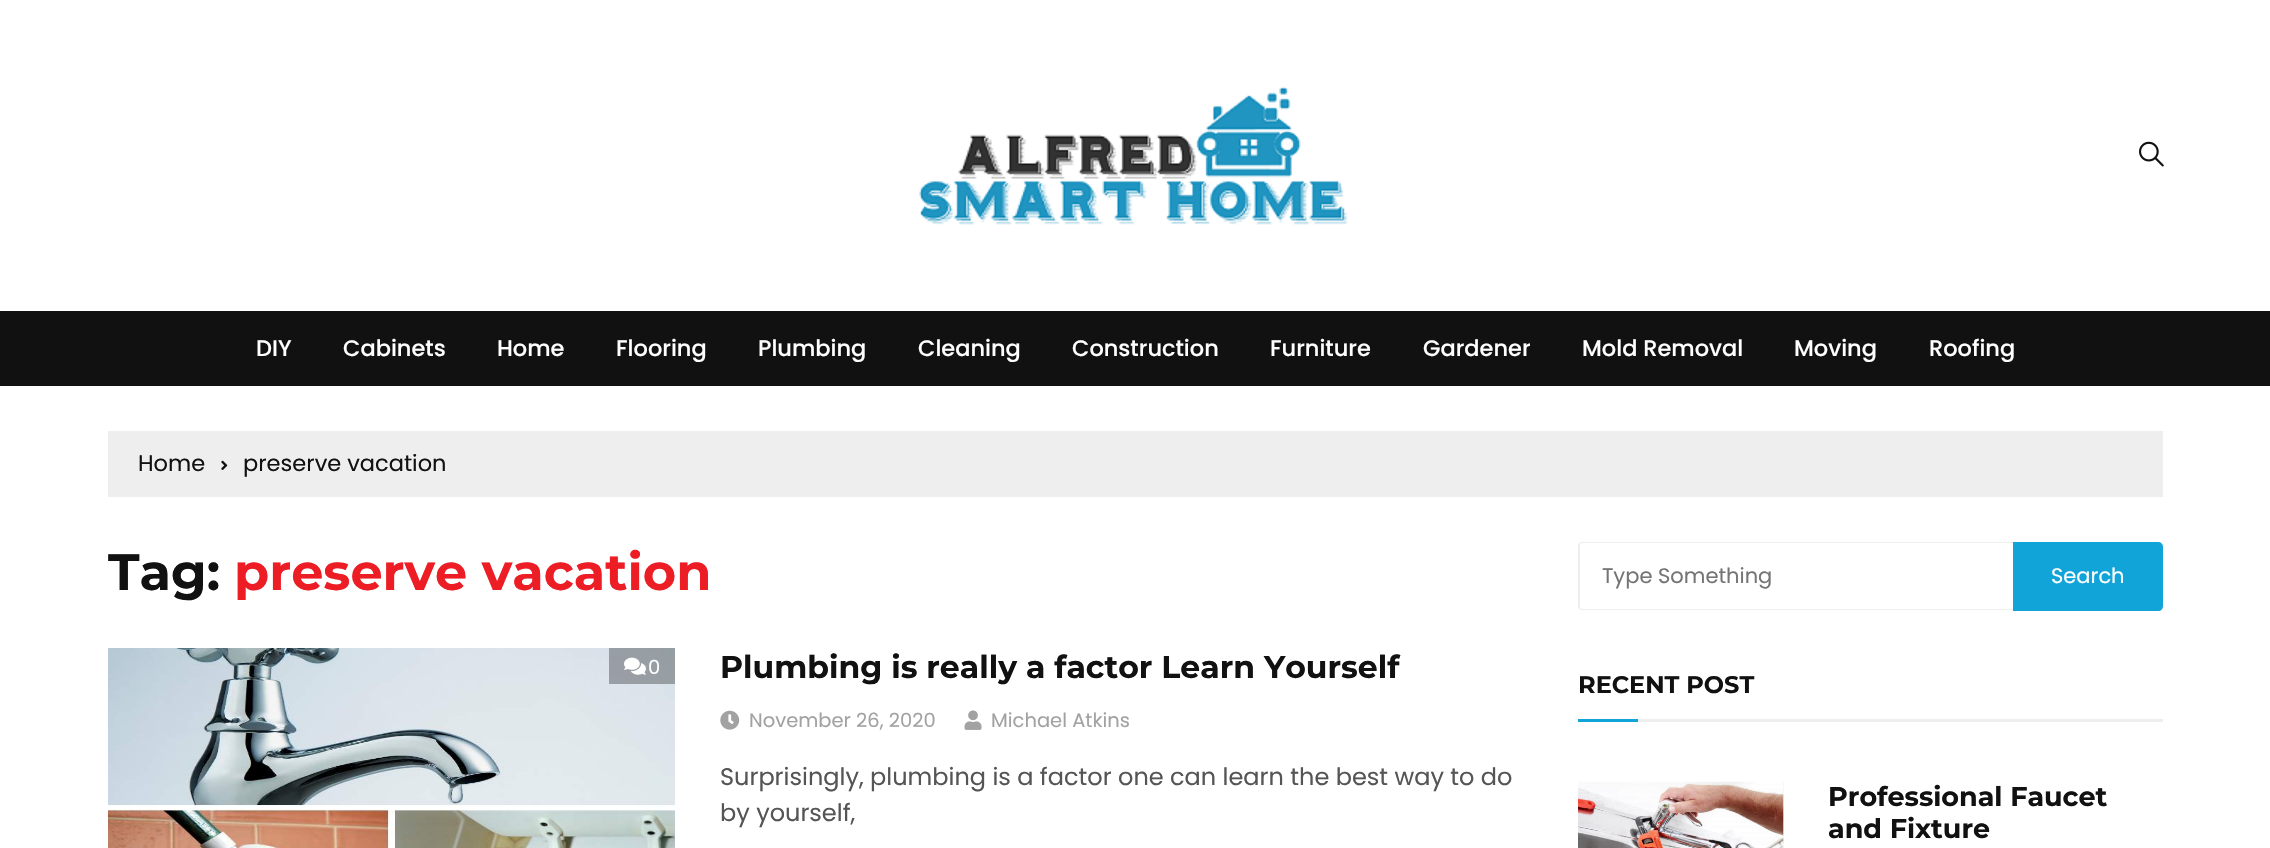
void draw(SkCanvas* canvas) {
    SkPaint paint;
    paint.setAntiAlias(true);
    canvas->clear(0xFFFFFFFF);
    canvas->drawImageRect(SkImages::DeferredFromEncodedData(SkData::MakeFromFileName("img1.png")), SkRect::MakeXYWH(919, 86, 429, 139), SkSamplingOptions());
    canvas->drawImageRect(SkImages::DeferredFromEncodedData(SkData::MakeFromFileName("img2.png")), SkRect::MakeXYWH(2139, 141, 25, 26), SkSamplingOptions());
    paint.setColor(0xFF111111);
    canvas->drawRect(SkRect::MakeXYWH(0, 311, 2270, 75), paint);
    SkFont font1(fontMgr->matchFamilyStyle("Poppins", SkFontStyle(500, SkFontStyle::kNormal_Width, SkFontStyle::kUpright_Slant)), 22.5f);
    font1.setSubpixel(true);
    paint.setColor(0xFFFFFFFF);
    canvas->drawString("DIY", 256, 356, font1, paint);
    canvas->drawString("Cabinets", 343, 356, font1, paint);
    canvas->drawString("Home", 497, 356, font1, paint);
    canvas->drawString("Flooring", 616, 356, font1, paint);
    canvas->drawString("Plumbing", 758, 356, font1, paint);
    canvas->drawString("Cleaning", 918, 356, font1, paint);
    canvas->drawString("Construction", 1072, 356, font1, paint);
    canvas->drawString("Furniture", 1270, 356, font1, paint);
    canvas->drawString("Gardener", 1423, 356, font1, paint);
    canvas->drawString("Mold Removal", 1582, 356, font1, paint);
    canvas->drawString("Moving", 1794, 356, font1, paint);
    canvas->drawString("Roofing", 1929, 356, font1, paint);
    paint.setColor(0xFFEEEEEE);
    canvas->drawRect(SkRect::MakeXYWH(108, 431, 2055, 66), paint);
    SkFont font2(fontMgr->matchFamilyStyle("Poppins", SkFontStyle::Normal()), 22.5f);
    font2.setSubpixel(true);
    paint.setColor(0xFF111111);
    canvas->drawString("Home", 138, 471, font2, paint);
    canvas->drawImageRect(SkImages::DeferredFromEncodedData(SkData::MakeFromFileName("img3.png")), SkRect::MakeXYWH(221, 460, 7, 10), SkSamplingOptions());
    canvas->drawString("preserve vacation", 243, 471, font2, paint);
    SkFont font3(fontMgr->matchFamilyStyle("Montserrat", SkFontStyle::Bold()), 51);
    font3.setSubpixel(true);
    canvas->drawString("Tag:", 108, 590, font3, paint);
    paint.setColor(0xFFED1D25);
    canvas->drawString("preserve vacation", 234, 590, font3, paint);
    canvas->drawImageRect(SkImages::DeferredFromEncodedData(SkData::MakeFromFileName("img4.png")), SkRect::MakeXYWH(108, 648, 567, 200), SkSamplingOptions());
    paint.setColor(0x4D000000);
    canvas->drawRect(SkRect::MakeXYWH(609, 648, 66, 36), paint);
    canvas->drawImageRect(SkImages::DeferredFromEncodedData(SkData::MakeFromFileName("img5.png")), SkRect::MakeXYWH(624, 657, 22, 18), SkSamplingOptions());
    SkFont font4(fontMgr->matchFamilyStyle("Poppins", SkFontStyle::Normal()), 19.5f);
    font4.setSubpixel(true);
    paint.setColor(0xFFFFFFFF);
    canvas->drawString("0", 648, 674, font4, paint);
    SkFont font5(fontMgr->matchFamilyStyle("Montserrat", SkFontStyle::Bold()), 31.5f);
    font5.setSubpixel(true);
    paint.setColor(0xFF111111);
    canvas->drawString("Plumbing is really a factor Learn Yourself", 720, 678, font5, paint);
    canvas->drawImageRect(SkImages::DeferredFromEncodedData(SkData::MakeFromFileName("img6.png")), SkRect::MakeXYWH(720, 710, 20, 20), SkSamplingOptions());
    paint.setColor(0xFFA2A2A2);
    canvas->drawString("November 26, 2020", 749, 727, font4, paint);
    canvas->drawImageRect(SkImages::DeferredFromEncodedData(SkData::MakeFromFileName("img7.png")), SkRect::MakeXYWH(964, 710, 18, 20), SkSamplingOptions());
    canvas->drawString("Michael Atkins", 991, 727, font4, paint);
    SkFont font6(fontMgr->matchFamilyStyle("Poppins", SkFontStyle::Normal()), 24);
    font6.setSubpixel(true);
    paint.setColor(0xFF555555);
    canvas->drawString("Surprisingly, plumbing is a factor one can learn the best way to do", 720, 785, font6, paint);
    canvas->drawString("by yourself,", 720, 821, font6, paint);
    paint.setColor(0xFFEEEEEE);
    canvas->drawPath(SkPathBuilder(SkPathFillType::kEvenOdd).moveTo(1582, 542).lineTo(2013, 542).lineTo(2013, 610).lineTo(1582, 610).cubicTo(1580, 610, 1578, 608, 1578, 606).lineTo(1578, 546).cubicTo(1578, 544, 1580, 542, 1582, 542).close().moveTo(1582, 543).lineTo(2013, 543).lineTo(2013, 609).lineTo(1582, 609).cubicTo(1581, 609, 1580, 608, 1580, 606).lineTo(1580, 546).cubicTo(1580, 544, 1581, 543, 1582, 543).close().detach(), paint);
    SkFont font7(fontMgr->matchFamilyStyle("Poppins", SkFontStyle::Normal()), 21);
    font7.setSubpixel(true);
    paint.setColor(0xFF757575);
    canvas->drawString("Type Something", 1602, 583, font7, paint);
    paint.setColor(0xFF11A4D9);
    canvas->drawPath(SkPathBuilder().moveTo(2013, 542).lineTo(2158, 542).cubicTo(2161, 542, 2163, 544, 2163, 547).lineTo(2163, 606).cubicTo(2163, 609, 2161, 611, 2158, 611).lineTo(2013, 611).close().detach(), paint);
    paint.setColor(0xFFFFFFFF);
    canvas->drawString("Search", 2051, 583, font7, paint);
    paint.setColor(0xFFEEEEEE);
    canvas->drawRect(SkRect::MakeXYWH(1638, 719, 525, 3), paint);
    SkFont font8(fontMgr->matchFamilyStyle("Montserrat", SkFontStyle::Bold()), 24);
    font8.setSubpixel(true);
    paint.setColor(0xFF111111);
    canvas->drawString("RECENT POST", 1578, 693, font8, paint);
    paint.setColor(0xFF11A4D9);
    canvas->drawRect(SkRect::MakeXYWH(1578, 719, 60, 3), paint);
    paint.setColor(0xFFF5F5F5);
    canvas->drawRect(SkRect::MakeXYWH(1783, 782, 1, 66), paint);
    canvas->drawImageRect(SkImages::DeferredFromEncodedData(SkData::MakeFromFileName("img8.png")), SkRect::MakeXYWH(1578, 781, 206, 67), SkSamplingOptions());
    SkFont font9(fontMgr->matchFamilyStyle("Montserrat", SkFontStyle::Bold()), 27);
    font9.setSubpixel(true);
    paint.setColor(0xFF111111);
    canvas->drawString("Professional Faucet", 1828, 806, font9, paint);
    canvas->drawString("and Fixture", 1828, 838, font9, paint);
}
